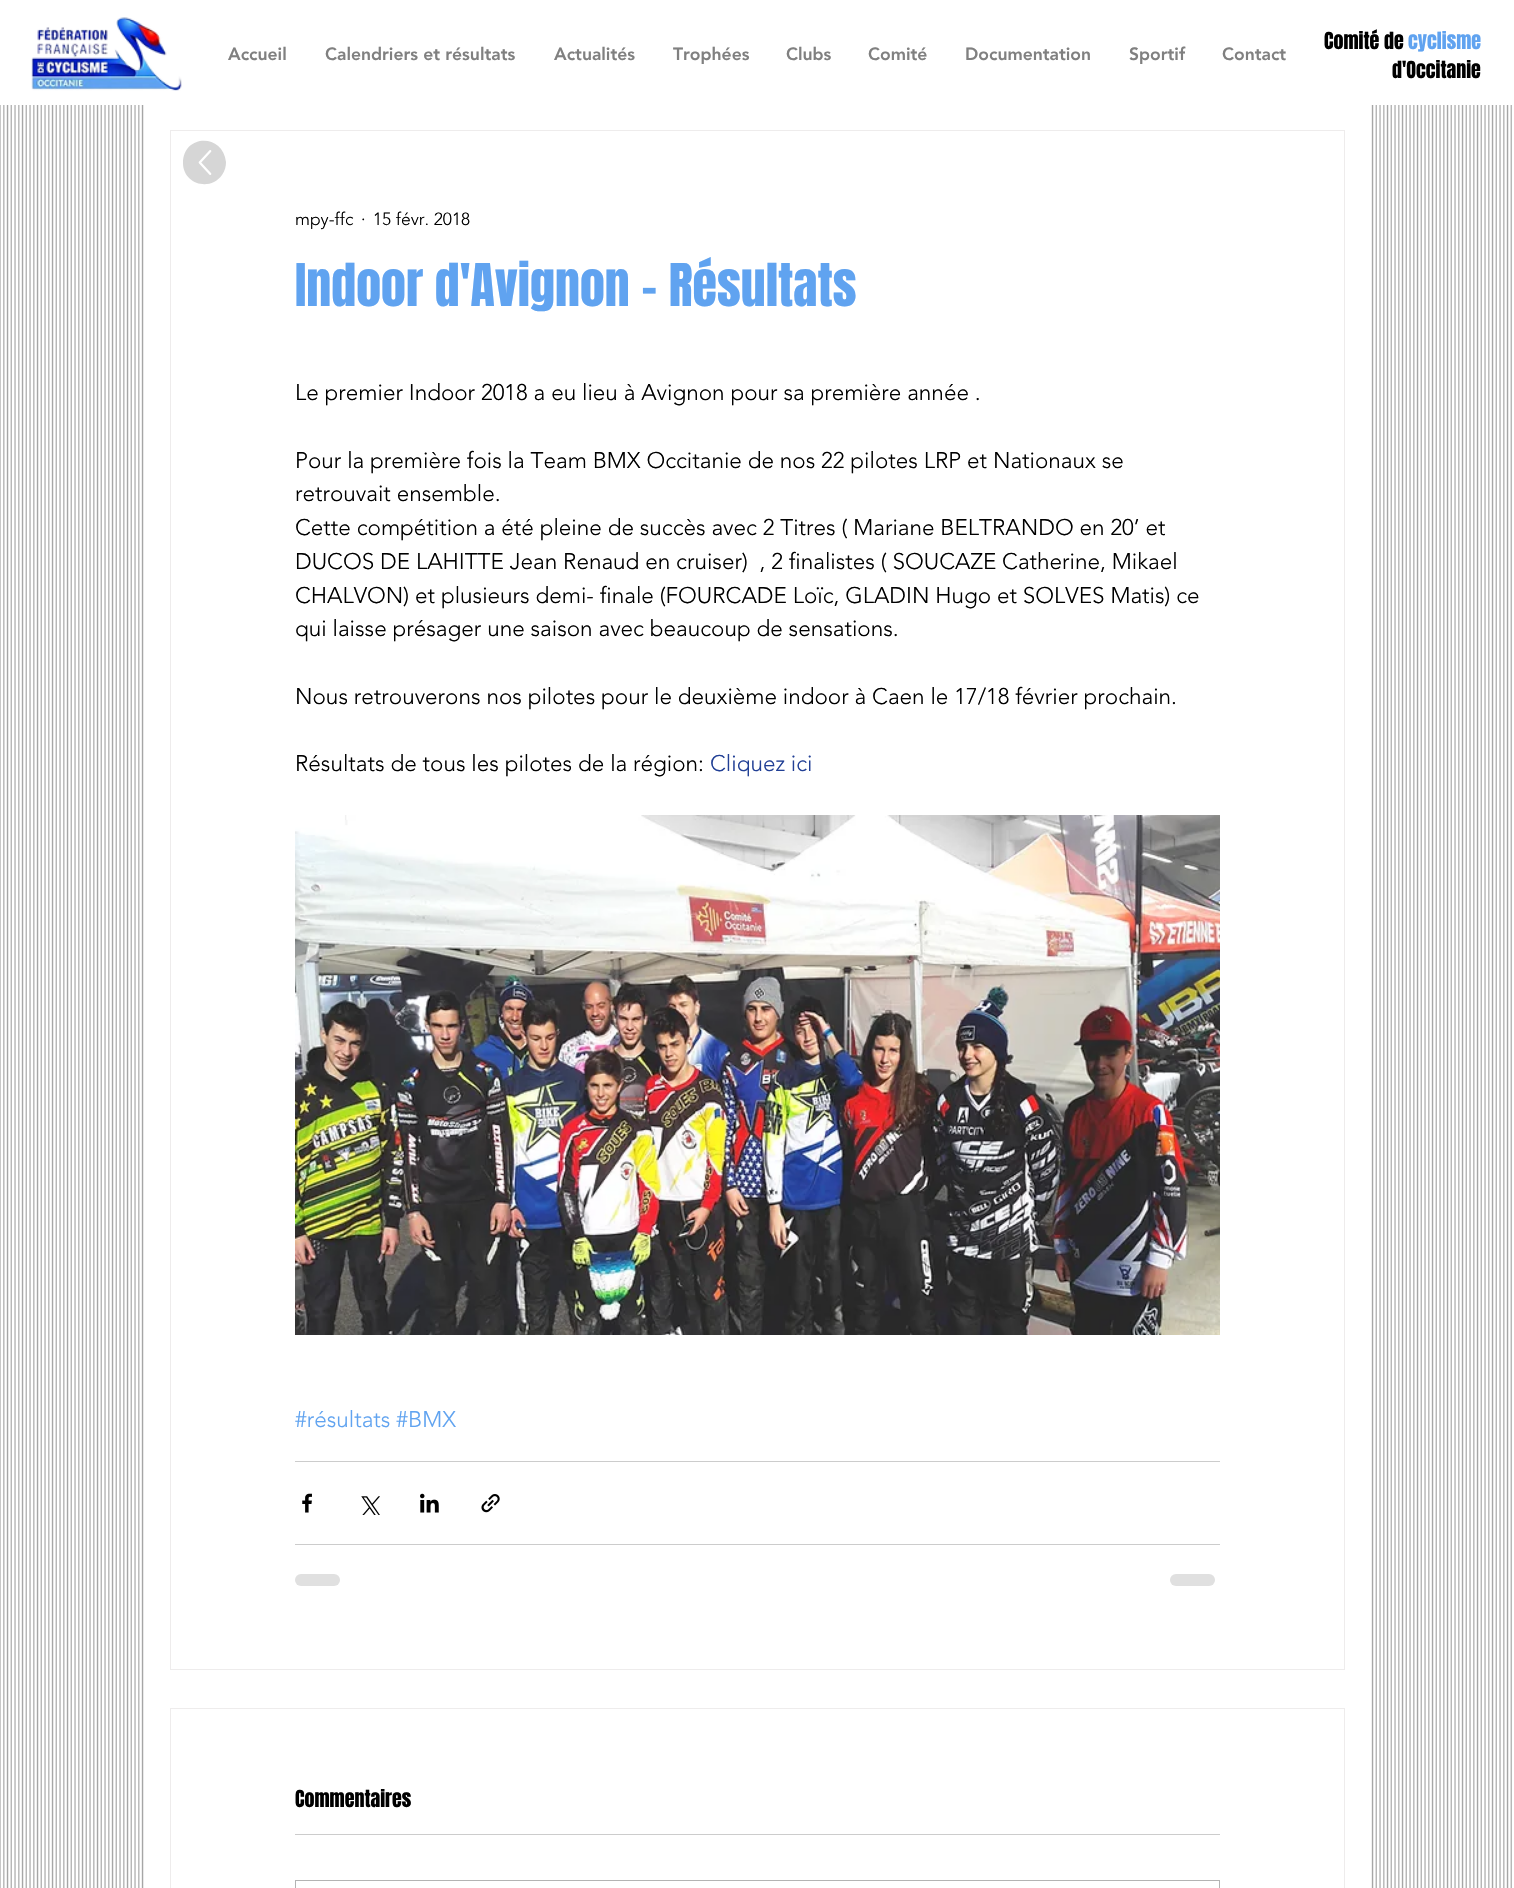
void draw(SkCanvas* canvas) {
    SkPaint paint;
    paint.setAntiAlias(true);
    canvas->clear(0xFFFFFFFF);
    canvas->drawImageRect(SkImages::DeferredFromEncodedData(SkData::MakeFromFileName("img1.png")), SkRect::MakeXYWH(31, 17, 151, 74), SkSamplingOptions());
    SkFont font1(fontMgr->matchFamilyStyle("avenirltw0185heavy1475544", SkFontStyle(900, SkFontStyle::kNormal_Width, SkFontStyle::kUpright_Slant)), 17.5f);
    font1.setSubpixel(true);
    paint.setColor(0xFF808080);
    canvas->drawString("Accueil", 228, 60, font1, paint);
    canvas->drawString("Calendriers et résultats", 325, 60, font1, paint);
    canvas->drawString("Actualités", 554, 60, font1, paint);
    canvas->drawString("Trophées", 673, 60, font1, paint);
    canvas->drawString("Clubs", 786, 60, font1, paint);
    canvas->drawString("Comité", 868, 60, font1, paint);
    canvas->drawString("Documentation", 965, 60, font1, paint);
    canvas->drawString("Sportif", 1129, 60, font1, paint);
    canvas->drawString("Contact", 1222, 60, font1, paint);
    SkFont font2(fontMgr->matchFamilyStyle("Anton", SkFontStyle::Normal()), 20);
    font2.setSubpixel(true);
    paint.setColor(0xFF000000);
    canvas->drawString("Comité de", 1324, 49, font2, paint);
    paint.setColor(0xFF60A3F0);
    canvas->drawString("cyclisme", 1408, 49, font2, paint);
    paint.setColor(0xFF000000);
    canvas->drawString("d'Occitanie", 1392, 78, font2, paint);
    canvas->drawImageRect(SkImages::DeferredFromEncodedData(SkData::MakeFromFileName("img2.png")), SkRect::MakeXYWH(0, 105, 1512, 1783), SkSamplingOptions());
    paint.setColor(0xFFFFFFFF);
    canvas->drawRect(SkRect::MakeXYWH(145, 105, 1225, 1783), paint);
    paint.setStyle(SkPaint::kStroke_Style);
    paint.setStrokeWidth(1);
    paint.setColor(0xFFEEECEC);
    canvas->drawRect(SkRect::MakeXYWH(170.5f, 130.5f, 1174, 1539), paint);
    paint.setStyle(SkPaint::kFill_Style);
    paint.setColor(0xFFD6D6D6);
    canvas->drawPath(SkPathBuilder().moveTo(183, 163).cubicTo(183, 134, 223, 133, 226, 162).cubicTo(226, 166, 225, 171, 222, 175).cubicTo(210, 192, 183, 184, 183, 163).close().detach(), paint);
    canvas->drawImageRect(SkImages::DeferredFromEncodedData(SkData::MakeFromFileName("img3.png")), SkRect::MakeXYWH(198, 150, 14, 25), SkSamplingOptions());
    SkFont font3(fontMgr->matchFamilyStyle("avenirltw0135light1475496", SkFontStyle(300, SkFontStyle::kNormal_Width, SkFontStyle::kUpright_Slant)), 17.5f);
    font3.setSubpixel(true);
    paint.setColor(0xFF000000);
    canvas->drawString("mpy-ffc", 295, 225, font3, paint);
    canvas->drawString("·", 361, 225, font3, paint);
    canvas->drawString("15 févr. 2018", 373, 225, font3, paint);
    SkFont font4(fontMgr->matchFamilyStyle("Anton", SkFontStyle::Normal()), 50);
    font4.setSubpixel(true);
    paint.setColor(0xFF60A3F0);
    canvas->drawString("Indoor d'Avignon - Résultats", 295, 306, font4, paint);
    SkFont font5(fontMgr->matchFamilyStyle("avenirltw0135light1475496", SkFontStyle(300, SkFontStyle::kNormal_Width, SkFontStyle::kUpright_Slant)), 22.5f);
    font5.setSubpixel(true);
    paint.setColor(0xFF000000);
    canvas->drawString("Le premier Indoor 2018 a eu lieu à Avignon pour sa première année .", 295, 400, font5, paint);
    canvas->drawString("Pour la première fois la Team BMX Occitanie de nos 22 pilotes LRP et Nationaux se", 295, 468, font5, paint);
    canvas->drawString("retrouvait ensemble.", 295, 501, font5, paint);
    canvas->drawString("Cette compétition a été pleine de succès avec 2 Titres ( Mariane BELTRANDO en 20’ et", 295, 535, font5, paint);
    canvas->drawString("DUCOS DE LAHITTE Jean Renaud en cruiser)  , 2 finalistes ( SOUCAZE Catherine, Mikael", 295, 569, font5, paint);
    canvas->drawString("CHALVON) et plusieurs demi- finale (FOURCADE Loïc, GLADIN Hugo et SOLVES Matis) ce", 295, 603, font5, paint);
    canvas->drawString("qui laisse présager une saison avec beaucoup de sensations.", 295, 636, font5, paint);
    canvas->drawString("Nous retrouverons nos pilotes pour le deuxième indoor à Caen le 17/18 février prochain.", 295, 704, font5, paint);
    canvas->drawString("Résultats de tous les pilotes de la région:", 295, 771, font5, paint);
    paint.setColor(0xFF213F95);
    canvas->drawString("Cliquez ici", 710, 771, font5, paint);
    canvas->drawImageRect(SkImages::DeferredFromEncodedData(SkData::MakeFromFileName("img4.png")), SkRect::MakeXYWH(295, 815, 925, 520), SkSamplingOptions());
    paint.setColor(0xFF60A3F0);
    canvas->drawString("#résultats #BMX", 295, 1427, font5, paint);
    paint.setColor(0xFFCCCCCC);
    canvas->drawRect(SkRect::MakeXYWH(295, 1461, 925, 1), paint);
    canvas->drawImageRect(SkImages::DeferredFromEncodedData(SkData::MakeFromFileName("img5.png")), SkRect::MakeXYWH(302, 1493, 10, 20), SkSamplingOptions());
    canvas->drawImageRect(SkImages::DeferredFromEncodedData(SkData::MakeFromFileName("img6.png")), SkRect::MakeXYWH(361, 1496, 19, 19), SkSamplingOptions());
    canvas->drawImageRect(SkImages::DeferredFromEncodedData(SkData::MakeFromFileName("img7.png")), SkRect::MakeXYWH(420, 1493, 19, 20), SkSamplingOptions());
    canvas->drawImageRect(SkImages::DeferredFromEncodedData(SkData::MakeFromFileName("img8.png")), SkRect::MakeXYWH(481, 1494, 19, 19), SkSamplingOptions());
    canvas->drawRect(SkRect::MakeXYWH(295, 1544, 925, 1), paint);
    paint.setColor(0xFFE0E0E0);
    canvas->drawRoundRect(SkRect::MakeXYWH(295, 1574, 45, 12), 6, 6, paint);
    canvas->drawRoundRect(SkRect::MakeXYWH(1170, 1574, 45, 12), 6, 6, paint);
    paint.setStyle(SkPaint::kStroke_Style);
    paint.setColor(0xFFEEECEC);
    canvas->drawRect(SkRect::MakeXYWH(170.5f, 1708.5f, 1174, 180), paint);
    paint.setStyle(SkPaint::kFill_Style);
    paint.setColor(0xFF000000);
    canvas->drawString("Commentaires", 295, 1807, font2, paint);
    paint.setColor(0xFFCCCCCC);
    canvas->drawRect(SkRect::MakeXYWH(295, 1834, 925, 1), paint);
    paint.setStyle(SkPaint::kStroke_Style);
    paint.setColor(0xFFB3B3B3);
    canvas->drawRect(SkRect::MakeXYWH(295.5f, 1880.5f, 924, 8), paint);
}
